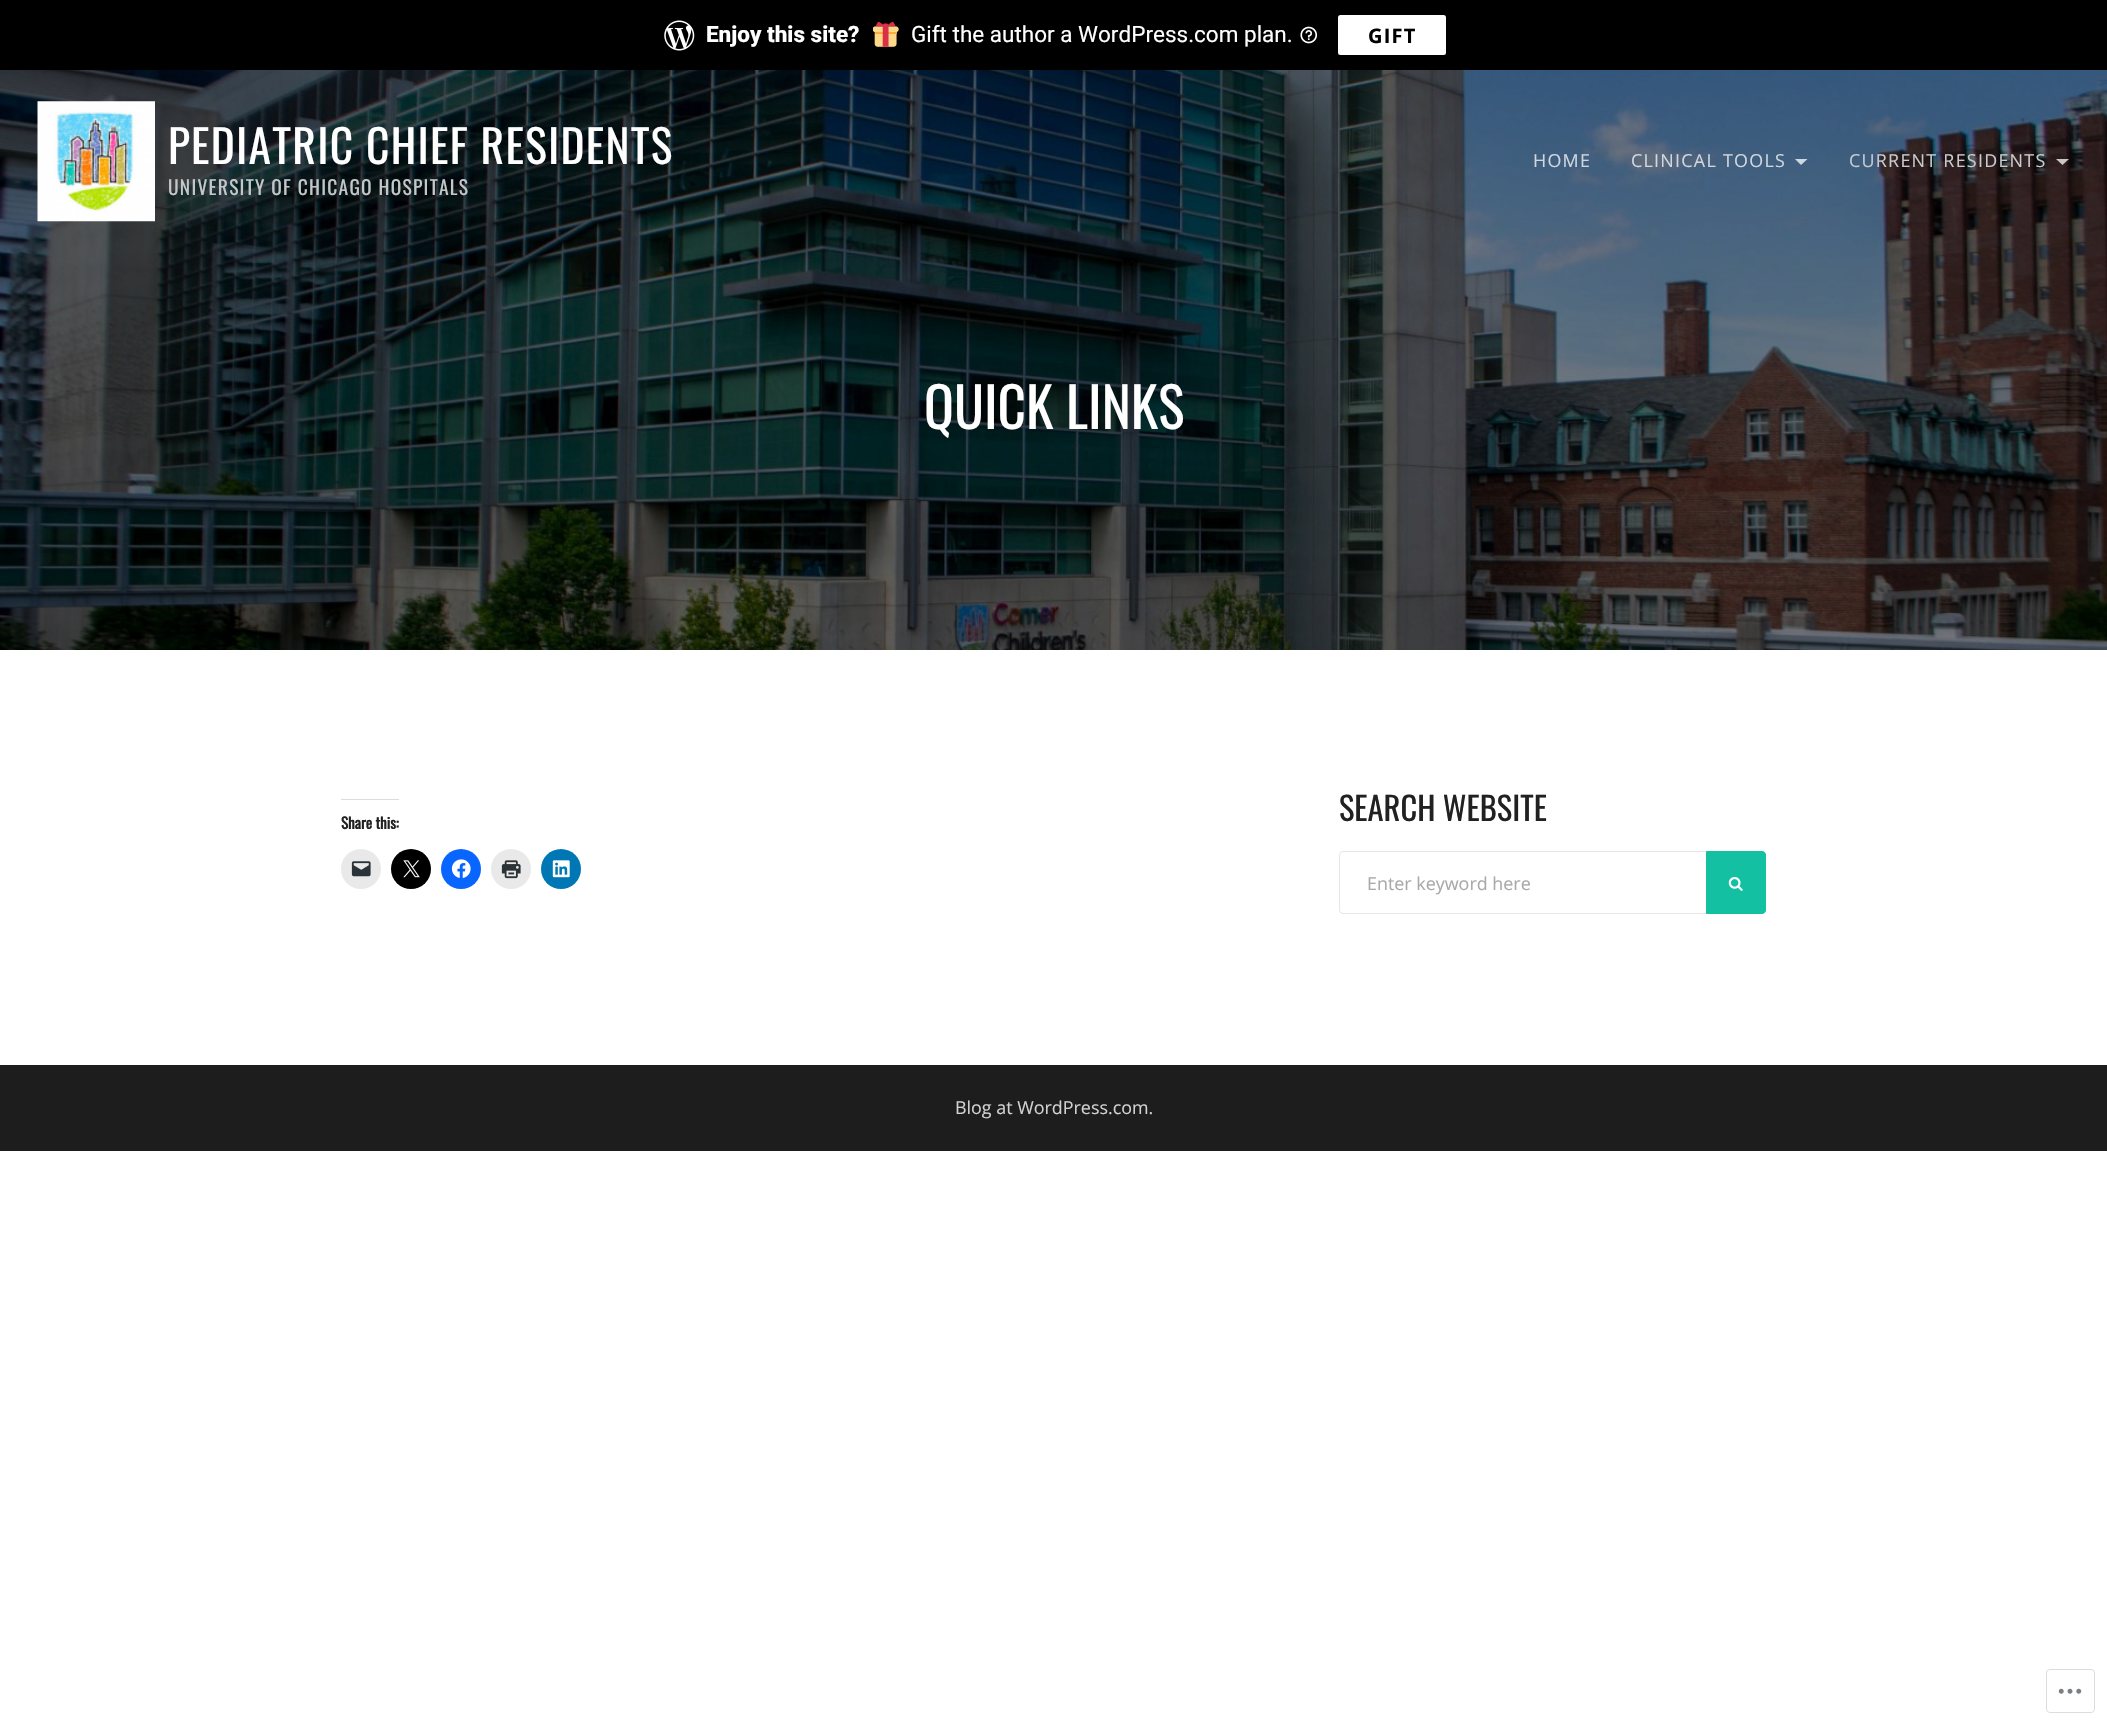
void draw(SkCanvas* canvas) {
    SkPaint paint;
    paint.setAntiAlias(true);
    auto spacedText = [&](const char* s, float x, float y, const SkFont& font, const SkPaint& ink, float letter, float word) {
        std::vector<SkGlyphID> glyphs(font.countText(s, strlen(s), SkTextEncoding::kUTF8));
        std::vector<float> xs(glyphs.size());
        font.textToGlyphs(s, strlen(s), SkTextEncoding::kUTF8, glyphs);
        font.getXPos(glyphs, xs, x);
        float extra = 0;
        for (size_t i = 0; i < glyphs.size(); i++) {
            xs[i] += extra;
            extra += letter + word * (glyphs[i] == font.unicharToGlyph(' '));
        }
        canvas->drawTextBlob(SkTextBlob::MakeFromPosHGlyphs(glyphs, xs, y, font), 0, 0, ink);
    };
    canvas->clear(0xFFFFFFFF);
    paint.setColor(0xFF000000);
    canvas->drawRect(SkRect::MakeXYWH(0, 0, 2107, 70), paint);
    canvas->drawImageRect(SkImages::DeferredFromEncodedData(SkData::MakeFromFileName("img1.png")), SkRect::MakeXYWH(664, 20, 31, 31), SkSamplingOptions());
    SkFont font1(fontMgr->matchFamilyStyle("Roboto", SkFontStyle(800, SkFontStyle::kNormal_Width, SkFontStyle::kUpright_Slant)), 22.5f);
    font1.setSubpixel(true);
    paint.setColor(0xFFFFFFFF);
    canvas->drawString("Enjoy this site?", 706, 42, font1, paint);
    canvas->drawImageRect(SkImages::DeferredFromEncodedData(SkData::MakeFromFileName("img2.png")), SkRect::MakeXYWH(873, 21, 26, 26), SkSamplingOptions());
    SkFont font2(fontMgr->matchFamilyStyle("Roboto", SkFontStyle::Normal()), 22.5f);
    font2.setSubpixel(true);
    canvas->drawString("Gift the author a WordPress.com plan.", 911, 42, font2, paint);
    canvas->drawImageRect(SkImages::DeferredFromEncodedData(SkData::MakeFromFileName("img3.png")), SkRect::MakeXYWH(1300, 26, 18, 18), SkSamplingOptions());
    canvas->drawRoundRect(SkRect::MakeXYWH(1338, 15, 108, 40), 2.5f, 2.5f, paint);
    SkFont font3(fontMgr->matchFamilyStyle("Open Sans", SkFontStyle::Bold()), 20);
    font3.setSubpixel(true);
    paint.setColor(0xFF000000);
    spacedText("GIFT", 1368, 43, font3, paint, 1.25f, 0);
    canvas->drawImageRect(SkImages::DeferredFromEncodedData(SkData::MakeFromFileName("img4.png")), SkRect::MakeXYWH(0, 70, 2107, 580), SkSamplingOptions());
    canvas->drawImageRect(SkImages::DeferredFromEncodedData(SkData::MakeFromFileName("img5.png")), SkRect::MakeXYWH(37, 101, 118, 121), SkSamplingOptions());
    SkFont font4(fontMgr->matchFamilyStyle("Oswald", SkFontStyle::Normal()), 45.5f);
    font4.setSubpixel(true);
    paint.setColor(0xFFFFFFFF);
    spacedText("PEDIATRIC CHIEF RESIDENTS", 168, 164, font4, paint, 1.25f, 0);
    SkFont font5(fontMgr->matchFamilyStyle("Oswald", SkFontStyle::Normal()), 19.5f);
    font5.setSubpixel(true);
    paint.setColor(0xFFC4C7C8);
    spacedText("UNIVERSITY OF CHICAGO HOSPITALS", 168, 195, font5, paint, 1.25f, 0);
    SkFont font6(fontMgr->matchFamilyStyle("Open Sans", SkFontStyle::Normal()), 17.9f);
    font6.setSubpixel(true);
    paint.setColor(0xFFCFD7DF);
    spacedText("HOME", 1533, 167, font6, paint, 1.25f, 0);
    spacedText("CLINICAL TOOLS", 1631, 167, font6, paint, 1.25f, 0);
    canvas->drawPath(SkPathBuilder().moveTo(1795, 159).lineTo(1807.5f, 159).lineTo(1801, 165).close().detach(), paint);
    paint.setColor(0xFFCACACC);
    spacedText("CURRENT RESIDENTS", 1849, 167, font6, paint, 1.25f, 0);
    paint.setColor(0xBFFFFFFF);
    canvas->drawPath(SkPathBuilder().moveTo(2056, 159).lineTo(2069, 159).lineTo(2062.5f, 165).close().detach(), paint);
    SkFont font7(fontMgr->matchFamilyStyle("Oswald", SkFontStyle::Normal()), 55.25f);
    font7.setSubpixel(true);
    paint.setColor(0xFFFFFFFF);
    canvas->drawString("QUICK LINKS", 924, 429, font7, paint);
    paint.setColor(0xFFDCDCDE);
    canvas->drawRect(SkRect::MakeXYWH(341, 799, 58, 1), paint);
    SkFont font8(fontMgr->matchFamilyStyle("Oswald", SkFontStyle::Bold()), 15);
    font8.setSubpixel(true);
    paint.setColor(0xFF212121);
    canvas->drawString("Share this:", 341, 829, font8, paint);
    paint.setColor(0xFFE9E9E9);
    canvas->drawCircle(361, 869, 20, paint);
    canvas->drawImageRect(SkImages::DeferredFromEncodedData(SkData::MakeFromFileName("img6.png")), SkRect::MakeXYWH(351, 861, 20, 16), SkSamplingOptions());
    paint.setColor(0xFF000000);
    canvas->drawCircle(411, 869, 20, paint);
    canvas->drawImageRect(SkImages::DeferredFromEncodedData(SkData::MakeFromFileName("img7.png")), SkRect::MakeXYWH(403, 860, 17, 18), SkSamplingOptions());
    paint.setColor(0xFF0866FF);
    canvas->drawCircle(461, 869, 20, paint);
    canvas->drawImageRect(SkImages::DeferredFromEncodedData(SkData::MakeFromFileName("img8.png")), SkRect::MakeXYWH(451, 859, 20, 19), SkSamplingOptions());
    paint.setColor(0xFFE9E9E9);
    canvas->drawCircle(511, 869, 20, paint);
    canvas->drawImageRect(SkImages::DeferredFromEncodedData(SkData::MakeFromFileName("img9.png")), SkRect::MakeXYWH(501, 860, 20, 19), SkSamplingOptions());
    paint.setColor(0xFF0077B5);
    canvas->drawCircle(561, 869, 20, paint);
    canvas->drawImageRect(SkImages::DeferredFromEncodedData(SkData::MakeFromFileName("img10.png")), SkRect::MakeXYWH(552, 860, 18, 18), SkSamplingOptions());
    SkFont font9(fontMgr->matchFamilyStyle("Oswald", SkFontStyle::Normal()), 32.5f);
    font9.setSubpixel(true);
    paint.setColor(0xFF212121);
    canvas->drawString("SEARCH WEBSITE", 1339, 821, font9, paint);
    paint.setStyle(SkPaint::kStroke_Style);
    paint.setStrokeWidth(1);
    paint.setColor(0xFFE6E6E6);
    canvas->drawRoundRect(SkRect::MakeXYWH(1339.5f, 851.5f, 426, 62), 3.5f, 3.5f, paint);
    paint.setStyle(SkPaint::kFill_Style);
    paint.setColor(0xFFA9A9A9);
    canvas->drawString("Enter keyword here", 1367, 890, font6, paint);
    paint.setColor(0xFF13C0A2);
    canvas->drawPath(SkPathBuilder().moveTo(1706.5f, 851.5f).lineTo(1762, 851.5f).cubicTo(1764, 851.5f, 1765.5f, 853, 1765.5f, 855).lineTo(1765.5f, 910).cubicTo(1765.5f, 912, 1764, 913.5f, 1762, 913.5f).lineTo(1706.5f, 913.5f).close().detach(), paint);
    paint.setStyle(SkPaint::kStroke_Style);
    canvas->drawPath(SkPathBuilder().moveTo(1706.5f, 851.5f).lineTo(1762, 851.5f).cubicTo(1764, 851.5f, 1765.5f, 853, 1765.5f, 855).lineTo(1765.5f, 910).cubicTo(1765.5f, 912, 1764, 913.5f, 1762, 913.5f).lineTo(1706.5f, 913.5f).close().detach(), paint);
    canvas->drawImageRect(SkImages::DeferredFromEncodedData(SkData::MakeFromFileName("img11.png")), SkRect::MakeXYWH(1728, 876, 15, 15), SkSamplingOptions());
    paint.setStyle(SkPaint::kFill_Style);
    paint.setColor(0xFF1D1D1D);
    canvas->drawRect(SkRect::MakeXYWH(0, 1065, 2107, 86), paint);
    paint.setColor(0xFFD2D2D2);
    canvas->drawString("Blog at WordPress.com.", 955, 1114, font6, paint);
    paint.setStyle(SkPaint::kStroke_Style);
    paint.setColor(0xFFDDDDDF);
    canvas->drawRoundRect(SkRect::MakeXYWH(2046.5f, 1669.5f, 48, 43), 3.5f, 3.5f, paint);
    canvas->drawImageRect(SkImages::DeferredFromEncodedData(SkData::MakeFromFileName("img12.png")), SkRect::MakeXYWH(2058, 1688, 24, 6), SkSamplingOptions());
}
